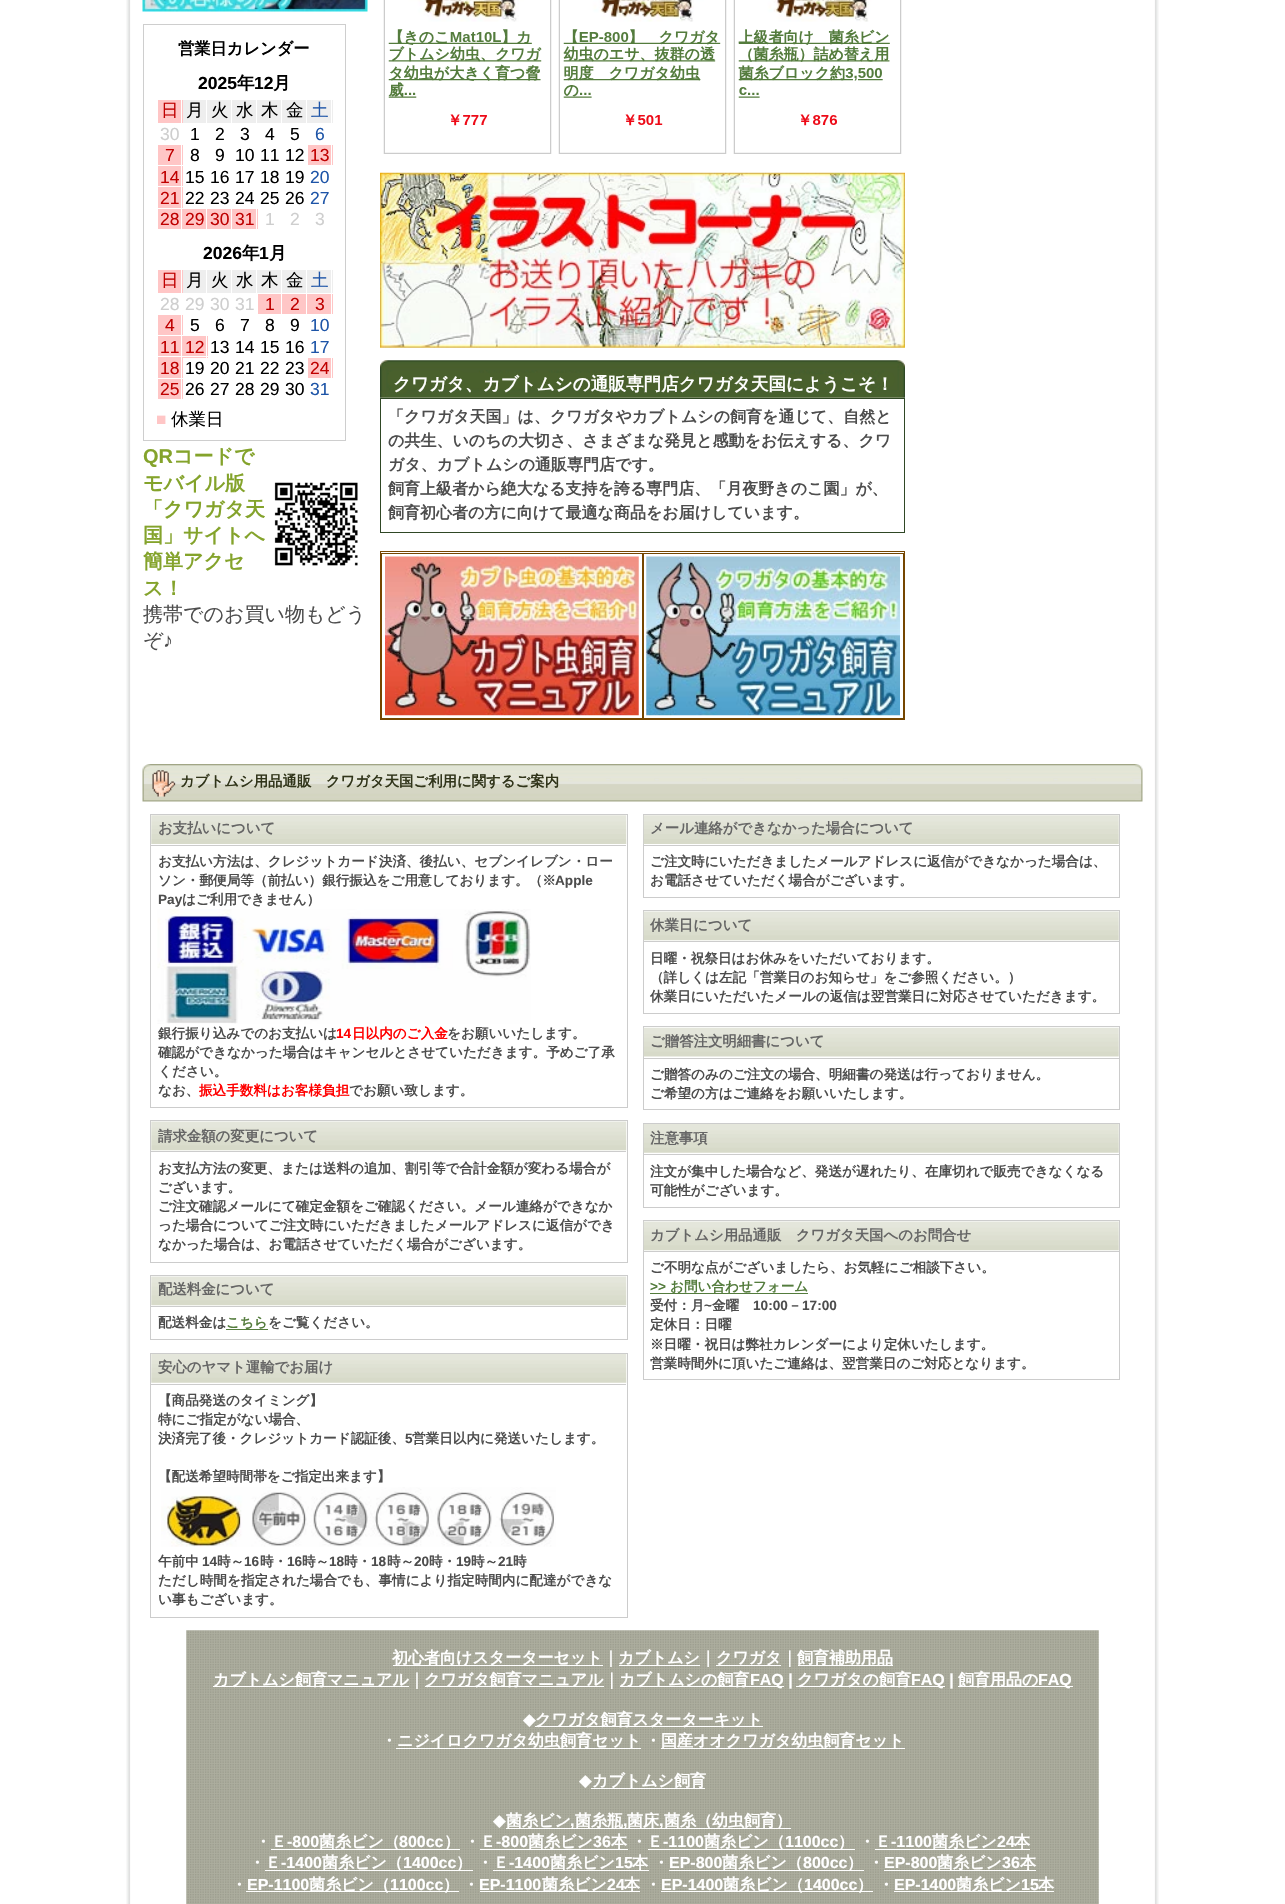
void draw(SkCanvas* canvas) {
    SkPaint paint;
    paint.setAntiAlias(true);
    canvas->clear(0xFFFFFFFF);
    canvas->drawImageRect(SkImages::DeferredFromEncodedData(SkData::MakeFromFileName("img1.png")), SkRect::MakeXYWH(126, 0, 1033, 1904), SkSamplingOptions());
    canvas->drawImageRect(SkImages::DeferredFromEncodedData(SkData::MakeFromFileName("img2.png")), SkRect::MakeXYWH(142, 0, 226, 12), SkSamplingOptions());
    paint.setColor(0xFFCECECE);
    canvas->drawRect(SkRect::MakeXYWH(143, 24, 203, 1), paint);
    canvas->drawRect(SkRect::MakeXYWH(345, 24, 1, 417), paint);
    canvas->drawRect(SkRect::MakeXYWH(143, 440, 203, 1), paint);
    canvas->drawRect(SkRect::MakeXYWH(143, 24, 1, 417), paint);
    SkFont font1(fontMgr->matchFamilyStyle("WenQuanYi Zen Hei", SkFontStyle::Bold()), 16.25f);
    font1.setSubpixel(true);
    paint.setColor(0xFF000000);
    canvas->drawString("営業日カレンダー", 178, 54, font1, paint);
    SkFont font2(fontMgr->matchFamilyStyle("Liberation Sans", SkFontStyle::Bold()), 17.5f);
    font2.setSubpixel(true);
    canvas->drawString("2025", 198, 89, font2, paint);
    SkFont font3(fontMgr->matchFamilyStyle("WenQuanYi Zen Hei", SkFontStyle::Bold()), 17.5f);
    font3.setSubpixel(true);
    canvas->drawString("年", 237, 89, font3, paint);
    canvas->drawString("12", 254, 89, font2, paint);
    canvas->drawString("月", 273, 89, font3, paint);
    paint.setColor(0xFFFFC6C6);
    canvas->drawRect(SkRect::MakeXYWH(158, 100, 25, 23), paint);
    SkFont font4(fontMgr->matchFamilyStyle("WenQuanYi Zen Hei", SkFontStyle(500, SkFontStyle::kNormal_Width, SkFontStyle::kUpright_Slant)), 17.5f);
    font4.setSubpixel(true);
    paint.setColor(0xFFBF0000);
    canvas->drawString("日", 161, 116, font4, paint);
    paint.setColor(0xFFEEEEEE);
    canvas->drawRect(SkRect::MakeXYWH(183, 100, 150, 23), paint);
    paint.setColor(0xFFFFFFFF);
    canvas->drawRect(SkRect::MakeXYWH(181, 99, 1, 25), paint);
    paint.setColor(0xFF000000);
    canvas->drawString("月", 186, 116, font4, paint);
    paint.setColor(0xFFFFFFFF);
    canvas->drawRect(SkRect::MakeXYWH(206, 99, 1, 25), paint);
    paint.setColor(0xFF000000);
    canvas->drawString("火", 211, 116, font4, paint);
    paint.setColor(0xFFFFFFFF);
    canvas->drawRect(SkRect::MakeXYWH(231, 99, 1, 25), paint);
    paint.setColor(0xFF000000);
    canvas->drawString("水", 236, 116, font4, paint);
    paint.setColor(0xFFFFFFFF);
    canvas->drawRect(SkRect::MakeXYWH(256, 99, 1, 25), paint);
    paint.setColor(0xFF000000);
    canvas->drawString("木", 261, 116, font4, paint);
    paint.setColor(0xFFFFFFFF);
    canvas->drawRect(SkRect::MakeXYWH(281, 99, 1, 25), paint);
    paint.setColor(0xFF000000);
    canvas->drawString("金", 286, 116, font4, paint);
    paint.setColor(0xFFFFFFFF);
    canvas->drawRect(SkRect::MakeXYWH(331, 99, 1, 25), paint);
    canvas->drawRect(SkRect::MakeXYWH(306, 99, 1, 25), paint);
    paint.setColor(0xFF1D54A7);
    canvas->drawString("土", 311, 116, font4, paint);
    SkFont font5(fontMgr->matchFamilyStyle("Liberation Sans", SkFontStyle::Normal()), 17.5f);
    font5.setSubpixel(true);
    paint.setColor(0xFFCECECE);
    canvas->drawString("30", 160, 140, font5, paint);
    paint.setColor(0xFF000000);
    canvas->drawString("1", 190, 140, font5, paint);
    canvas->drawString("2", 215, 140, font5, paint);
    canvas->drawString("3", 240, 140, font5, paint);
    canvas->drawString("4", 265, 140, font5, paint);
    canvas->drawString("5", 290, 140, font5, paint);
    paint.setColor(0xFF1D54A7);
    canvas->drawString("6", 315, 140, font5, paint);
    paint.setColor(0xFFFFC6C6);
    canvas->drawRect(SkRect::MakeXYWH(158, 145, 25, 20), paint);
    paint.setColor(0xFFBF0000);
    canvas->drawString("7", 165, 161, font5, paint);
    paint.setColor(0xFF000000);
    canvas->drawString("8", 190, 161, font5, paint);
    canvas->drawString("9", 215, 161, font5, paint);
    canvas->drawString("10", 235, 161, font5, paint);
    canvas->drawString("11", 260, 161, font5, paint);
    canvas->drawString("12", 285, 161, font5, paint);
    paint.setColor(0xFFFFC6C6);
    canvas->drawRect(SkRect::MakeXYWH(308, 145, 25, 20), paint);
    paint.setColor(0xFFFFFFFF);
    canvas->drawRect(SkRect::MakeXYWH(331, 144, 1, 22), paint);
    paint.setColor(0xFFBF0000);
    canvas->drawString("13", 310, 161, font5, paint);
    paint.setColor(0xFFFFC6C6);
    canvas->drawRect(SkRect::MakeXYWH(158, 166, 25, 42), paint);
    paint.setColor(0xFFBF0000);
    canvas->drawString("14", 160, 183, font5, paint);
    paint.setColor(0xFFFFFFFF);
    canvas->drawRect(SkRect::MakeXYWH(181, 186, 2, 1), paint);
    paint.setColor(0xFFFFC6C6);
    canvas->drawRect(SkRect::MakeXYWH(158, 209, 100, 20), paint);
    paint.setColor(0xFFFFFFFF);
    canvas->drawRect(SkRect::MakeXYWH(181, 208, 1, 22), paint);
    canvas->drawRect(SkRect::MakeXYWH(181, 186, 1, 23), paint);
    canvas->drawRect(SkRect::MakeXYWH(156, 186, 27, 1), paint);
    canvas->drawRect(SkRect::MakeXYWH(181, 144, 1, 44), paint);
    paint.setColor(0xFF000000);
    canvas->drawString("15", 185, 183, font5, paint);
    canvas->drawString("16", 210, 183, font5, paint);
    canvas->drawString("17", 235, 183, font5, paint);
    canvas->drawString("18", 260, 183, font5, paint);
    canvas->drawString("19", 285, 183, font5, paint);
    paint.setColor(0xFF1D54A7);
    canvas->drawString("20", 310, 183, font5, paint);
    paint.setColor(0xFFBF0000);
    canvas->drawString("21", 160, 204, font5, paint);
    paint.setColor(0xFF000000);
    canvas->drawString("22", 185, 204, font5, paint);
    canvas->drawString("23", 210, 204, font5, paint);
    canvas->drawString("24", 235, 204, font5, paint);
    canvas->drawString("25", 260, 204, font5, paint);
    canvas->drawString("26", 285, 204, font5, paint);
    paint.setColor(0xFF1D54A7);
    canvas->drawString("27", 310, 204, font5, paint);
    paint.setColor(0xFFBF0000);
    canvas->drawString("28", 160, 225, font5, paint);
    canvas->drawString("29", 185, 225, font5, paint);
    paint.setColor(0xFFFFFFFF);
    canvas->drawRect(SkRect::MakeXYWH(206, 208, 1, 22), paint);
    paint.setColor(0xFFBF0000);
    canvas->drawString("30", 210, 225, font5, paint);
    paint.setColor(0xFFFFFFFF);
    canvas->drawRect(SkRect::MakeXYWH(231, 208, 1, 22), paint);
    paint.setColor(0xFFBF0000);
    canvas->drawString("31", 235, 225, font5, paint);
    paint.setColor(0xFFFFFFFF);
    canvas->drawRect(SkRect::MakeXYWH(256, 208, 1, 22), paint);
    paint.setColor(0xFFCECECE);
    canvas->drawString("1", 265, 225, font5, paint);
    canvas->drawString("2", 290, 225, font5, paint);
    canvas->drawString("3", 315, 225, font5, paint);
    paint.setColor(0xFF000000);
    canvas->drawString("2026", 203, 259, font2, paint);
    canvas->drawString("年", 242, 259, font3, paint);
    canvas->drawString("1", 259, 259, font2, paint);
    canvas->drawString("月", 269, 259, font3, paint);
    paint.setColor(0xFFFFC6C6);
    canvas->drawRect(SkRect::MakeXYWH(158, 270, 25, 23), paint);
    paint.setColor(0xFFBF0000);
    canvas->drawString("日", 161, 286, font4, paint);
    paint.setColor(0xFFEEEEEE);
    canvas->drawRect(SkRect::MakeXYWH(183, 270, 150, 23), paint);
    paint.setColor(0xFFFFFFFF);
    canvas->drawRect(SkRect::MakeXYWH(181, 269, 1, 25), paint);
    paint.setColor(0xFF000000);
    canvas->drawString("月", 186, 286, font4, paint);
    paint.setColor(0xFFFFFFFF);
    canvas->drawRect(SkRect::MakeXYWH(206, 269, 1, 25), paint);
    paint.setColor(0xFF000000);
    canvas->drawString("火", 211, 286, font4, paint);
    paint.setColor(0xFFFFFFFF);
    canvas->drawRect(SkRect::MakeXYWH(231, 269, 1, 25), paint);
    paint.setColor(0xFF000000);
    canvas->drawString("水", 236, 286, font4, paint);
    paint.setColor(0xFFFFFFFF);
    canvas->drawRect(SkRect::MakeXYWH(256, 269, 1, 25), paint);
    paint.setColor(0xFF000000);
    canvas->drawString("木", 261, 286, font4, paint);
    canvas->drawString("金", 286, 286, font4, paint);
    paint.setColor(0xFF1D54A7);
    canvas->drawString("土", 311, 286, font4, paint);
    paint.setColor(0xFFCECECE);
    canvas->drawString("28", 160, 310, font5, paint);
    canvas->drawString("29", 185, 310, font5, paint);
    canvas->drawString("30", 210, 310, font5, paint);
    canvas->drawString("31", 235, 310, font5, paint);
    paint.setColor(0xFFFFC6C6);
    canvas->drawRect(SkRect::MakeXYWH(258, 294, 75, 20), paint);
    paint.setColor(0xFFBF0000);
    canvas->drawString("1", 265, 310, font5, paint);
    paint.setColor(0xFFFFFFFF);
    canvas->drawRect(SkRect::MakeXYWH(281, 269, 1, 46), paint);
    paint.setColor(0xFFBF0000);
    canvas->drawString("2", 290, 310, font5, paint);
    paint.setColor(0xFFFFFFFF);
    canvas->drawRect(SkRect::MakeXYWH(331, 269, 1, 46), paint);
    canvas->drawRect(SkRect::MakeXYWH(306, 269, 1, 46), paint);
    paint.setColor(0xFFBF0000);
    canvas->drawString("3", 315, 310, font5, paint);
    paint.setColor(0xFFFFC6C6);
    canvas->drawRect(SkRect::MakeXYWH(158, 315, 25, 20), paint);
    paint.setColor(0xFFBF0000);
    canvas->drawString("4", 165, 331, font5, paint);
    paint.setColor(0xFF000000);
    canvas->drawString("5", 190, 331, font5, paint);
    canvas->drawString("6", 215, 331, font5, paint);
    canvas->drawString("7", 240, 331, font5, paint);
    canvas->drawString("8", 265, 331, font5, paint);
    canvas->drawString("9", 290, 331, font5, paint);
    paint.setColor(0xFF1D54A7);
    canvas->drawString("10", 310, 331, font5, paint);
    paint.setColor(0xFFFFC6C6);
    canvas->drawRect(SkRect::MakeXYWH(158, 336, 50, 22), paint);
    paint.setColor(0xFFBF0000);
    canvas->drawString("11", 160, 353, font5, paint);
    paint.setColor(0xFFFFFFFF);
    canvas->drawRect(SkRect::MakeXYWH(206, 356, 2, 1), paint);
    canvas->drawRect(SkRect::MakeXYWH(206, 356, 1, 2), paint);
    canvas->drawRect(SkRect::MakeXYWH(181, 356, 27, 1), paint);
    paint.setColor(0xFFFFC6C6);
    canvas->drawRect(SkRect::MakeXYWH(158, 358, 25, 20), paint);
    canvas->drawRect(SkRect::MakeXYWH(158, 379, 25, 20), paint);
    paint.setColor(0xFFFFFFFF);
    canvas->drawRect(SkRect::MakeXYWH(181, 378, 1, 22), paint);
    canvas->drawRect(SkRect::MakeXYWH(181, 356, 1, 23), paint);
    canvas->drawRect(SkRect::MakeXYWH(156, 356, 27, 1), paint);
    canvas->drawRect(SkRect::MakeXYWH(181, 314, 1, 44), paint);
    paint.setColor(0xFFBF0000);
    canvas->drawString("12", 185, 353, font5, paint);
    paint.setColor(0xFFFFFFFF);
    canvas->drawRect(SkRect::MakeXYWH(206, 335, 1, 23), paint);
    paint.setColor(0xFF000000);
    canvas->drawString("13", 210, 353, font5, paint);
    canvas->drawString("14", 235, 353, font5, paint);
    canvas->drawString("15", 260, 353, font5, paint);
    canvas->drawString("16", 285, 353, font5, paint);
    paint.setColor(0xFF1D54A7);
    canvas->drawString("17", 310, 353, font5, paint);
    paint.setColor(0xFFBF0000);
    canvas->drawString("18", 160, 374, font5, paint);
    paint.setColor(0xFF000000);
    canvas->drawString("19", 185, 374, font5, paint);
    canvas->drawString("20", 210, 374, font5, paint);
    canvas->drawString("21", 235, 374, font5, paint);
    canvas->drawString("22", 260, 374, font5, paint);
    canvas->drawString("23", 285, 374, font5, paint);
    paint.setColor(0xFFFFC6C6);
    canvas->drawRect(SkRect::MakeXYWH(308, 358, 25, 20), paint);
    paint.setColor(0xFFFFFFFF);
    canvas->drawRect(SkRect::MakeXYWH(331, 356, 1, 23), paint);
    paint.setColor(0xFFBF0000);
    canvas->drawString("24", 310, 374, font5, paint);
    canvas->drawString("25", 160, 395, font5, paint);
    paint.setColor(0xFF000000);
    canvas->drawString("26", 185, 395, font5, paint);
    canvas->drawString("27", 210, 395, font5, paint);
    canvas->drawString("28", 235, 395, font5, paint);
    canvas->drawString("29", 260, 395, font5, paint);
    canvas->drawString("30", 285, 395, font5, paint);
    paint.setColor(0xFF1D54A7);
    canvas->drawString("31", 310, 395, font5, paint);
    SkFont font6(fontMgr->matchFamilyStyle("Liberation Sans", SkFontStyle::Normal()), 17);
    font6.setSubpixel(true);
    paint.setColor(0xFFFFC6C6);
    canvas->drawString("■", 156, 425, font6, paint);
    paint.setColor(0xFF000000);
    canvas->drawString("休業日", 171, 425, font4, paint);
    SkFont font7(fontMgr->matchFamilyStyle("Liberation Sans", SkFontStyle::Bold()), 20);
    font7.setSubpixel(true);
    paint.setColor(0xFF84A32B);
    canvas->drawString("QR", 143, 463, font7, paint);
    SkFont font8(fontMgr->matchFamilyStyle("WenQuanYi Zen Hei", SkFontStyle::Bold()), 20);
    font8.setSubpixel(true);
    canvas->drawString("コードで", 173, 463, font8, paint);
    canvas->drawString("モバイル版", 143, 490, font8, paint);
    canvas->drawString("「クワガタ天", 143, 516, font8, paint);
    canvas->drawString("国」サイトへ", 143, 542, font8, paint);
    canvas->drawString("簡単アクセ", 143, 568, font8, paint);
    canvas->drawString("ス！", 143, 595, font8, paint);
    canvas->drawImageRect(SkImages::DeferredFromEncodedData(SkData::MakeFromFileName("img3.png")), SkRect::MakeXYWH(274, 482, 84, 84), SkSamplingOptions());
    SkFont font9(fontMgr->matchFamilyStyle("WenQuanYi Zen Hei", SkFontStyle(500, SkFontStyle::kNormal_Width, SkFontStyle::kUpright_Slant)), 20);
    font9.setSubpixel(true);
    paint.setColor(0xFF4D4D4D);
    canvas->drawString("携帯でのお買い物もどう", 143, 621, font9, paint);
    canvas->drawString("ぞ", 143, 647, font9, paint);
    SkFont font10(fontMgr->matchFamilyStyle("Liberation Sans", SkFontStyle::Normal()), 20);
    font10.setSubpixel(true);
    canvas->drawString("♪", 163, 647, font10, paint);
    canvas->drawImageRect(SkImages::DeferredFromEncodedData(SkData::MakeFromFileName("img4.png")), SkRect::MakeXYWH(383, 0, 519, 154), SkSamplingOptions());
    canvas->drawImageRect(SkImages::DeferredFromEncodedData(SkData::MakeFromFileName("img5.png")), SkRect::MakeXYWH(380, 172, 525, 176), SkSamplingOptions());
    canvas->drawImageRect(SkImages::DeferredFromEncodedData(SkData::MakeFromFileName("img6.png")), SkRect::MakeXYWH(380, 360, 525, 38), SkSamplingOptions());
    SkFont font11(fontMgr->matchFamilyStyle("WenQuanYi Zen Hei", SkFontStyle::Bold()), 17.6f);
    font11.setSubpixel(true);
    paint.setColor(0xFFFFFFFF);
    canvas->drawString("クワガタ、カブトムシの通販専門店クワガタ天国にようこそ！", 393, 390, font11, paint);
    paint.setStyle(SkPaint::kStroke_Style);
    paint.setStrokeWidth(1);
    paint.setColor(0xFF2F4725);
    canvas->drawRect(SkRect::MakeXYWH(380.5f, 398.5f, 524, 134), paint);
    SkFont font12(fontMgr->matchFamilyStyle("WenQuanYi Zen Hei", SkFontStyle::Bold()), 16);
    font12.setSubpixel(true);
    paint.setStyle(SkPaint::kFill_Style);
    paint.setColor(0xFF4D4D4D);
    canvas->drawString("「クワガタ天国」は、クワガタやカブトムシの飼育を通じて、自然と", 388, 422, font12, paint);
    canvas->drawString("の共生、いのちの大切さ、さまざまな発見と感動をお伝えする、クワ", 388, 446, font12, paint);
    canvas->drawString("ガタ、カブトムシの通販専門店です。", 388, 470, font12, paint);
    canvas->drawString("飼育上級者から絶大なる支持を誇る専門店、「月夜野きのこ園」が、", 388, 494, font12, paint);
    canvas->drawString("飼育初心者の方に向けて最適な商品をお届けしています。", 388, 518, font12, paint);
    paint.setStyle(SkPaint::kStroke_Style);
    paint.setColor(0xFF754600);
    canvas->drawRect(SkRect::MakeXYWH(380.5f, 551.5f, 524, 168), paint);
    canvas->drawRect(SkRect::MakeXYWH(381.5f, 553.5f, 261, 165), paint);
    canvas->drawImageRect(SkImages::DeferredFromEncodedData(SkData::MakeFromFileName("img7.png")), SkRect::MakeXYWH(385, 556, 254, 160), SkSamplingOptions());
    canvas->drawRect(SkRect::MakeXYWH(643.5f, 553.5f, 260, 165), paint);
    canvas->drawImageRect(SkImages::DeferredFromEncodedData(SkData::MakeFromFileName("img8.png")), SkRect::MakeXYWH(646, 556, 254, 160), SkSamplingOptions());
    canvas->drawImageRect(SkImages::DeferredFromEncodedData(SkData::MakeFromFileName("img9.png")), SkRect::MakeXYWH(142, 764, 1001, 38), SkSamplingOptions());
    SkFont font13(fontMgr->matchFamilyStyle("WenQuanYi Zen Hei", SkFontStyle::Bold()), 14.4f);
    font13.setSubpixel(true);
    paint.setStyle(SkPaint::kFill_Style);
    paint.setColor(0xFF31351A);
    canvas->drawString("カブトムシ用品通販　クワガタ天国ご利用に関するご案内", 180, 786, font13, paint);
    paint.setStyle(SkPaint::kStroke_Style);
    paint.setColor(0xFFCCCCCC);
    canvas->drawRect(SkRect::MakeXYWH(150.5f, 814.5f, 477, 293), paint);
    canvas->drawImageRect(SkImages::DeferredFromEncodedData(SkData::MakeFromFileName("img10.png")), SkRect::MakeXYWH(151, 815, 476, 29), SkSamplingOptions());
    paint.setStyle(SkPaint::kFill_Style);
    canvas->drawRect(SkRect::MakeXYWH(151, 845, 475, 1), paint);
    paint.setColor(0xFF666666);
    canvas->drawString("お支払いについて", 158, 833, font13, paint);
    SkFont font14(fontMgr->matchFamilyStyle("WenQuanYi Zen Hei", SkFontStyle::Bold()), 13.6f);
    font14.setSubpixel(true);
    paint.setColor(0xFF4D4D4D);
    canvas->drawString("お支払い方法は、クレジットカード決済、後払い、セブンイレブン・ロー", 158, 866, font14, paint);
    canvas->drawString("ソン・郵便局等（前払い）銀行振込をご用意しております。（※", 158, 885, font14, paint);
    SkFont font15(fontMgr->matchFamilyStyle("Liberation Sans", SkFontStyle::Bold()), 13.6f);
    font15.setSubpixel(true);
    canvas->drawString("Apple", 555, 885, font15, paint);
    canvas->drawString("Pay", 158, 904, font15, paint);
    canvas->drawString("はご利用できません）", 182, 904, font14, paint);
    canvas->drawImageRect(SkImages::DeferredFromEncodedData(SkData::MakeFromFileName("img11.png")), SkRect::MakeXYWH(157, 909, 374, 115), SkSamplingOptions());
    canvas->drawString("銀行振り込みでのお支払いは", 158, 1038, font14, paint);
    paint.setColor(0xFFFF0000);
    canvas->drawString("14", 336, 1038, font15, paint);
    canvas->drawString("日以内のご入金", 352, 1038, font14, paint);
    paint.setColor(0xFF4D4D4D);
    canvas->drawString("をお願いいたします。", 447, 1038, font14, paint);
    canvas->drawString("確認ができなかった場合はキャンセルとさせていただきます。予めご了承", 158, 1057, font14, paint);
    canvas->drawString("ください。", 158, 1076, font14, paint);
    canvas->drawString("なお、", 158, 1095, font14, paint);
    paint.setColor(0xFFFF0000);
    canvas->drawString("振込手数料はお客様負担", 199, 1095, font14, paint);
    paint.setColor(0xFF4D4D4D);
    canvas->drawString("でお願い致します。", 349, 1095, font14, paint);
    paint.setStyle(SkPaint::kStroke_Style);
    paint.setColor(0xFFCCCCCC);
    canvas->drawRect(SkRect::MakeXYWH(150.5f, 1120.5f, 477, 142), paint);
    canvas->drawImageRect(SkImages::DeferredFromEncodedData(SkData::MakeFromFileName("img12.png")), SkRect::MakeXYWH(151, 1121, 476, 30), SkSamplingOptions());
    paint.setStyle(SkPaint::kFill_Style);
    canvas->drawRect(SkRect::MakeXYWH(151, 1151, 475, 1), paint);
    paint.setColor(0xFF666666);
    canvas->drawString("請求金額の変更について", 158, 1141, font13, paint);
    paint.setColor(0xFF4D4D4D);
    canvas->drawString("お支払方法の変更、または送料の追加、割引等で合計金額が変わる場合が", 158, 1173, font14, paint);
    canvas->drawString("ございます。", 158, 1192, font14, paint);
    canvas->drawString("ご注文確認メールにて確定金額をご確認ください。メール連絡ができなか", 158, 1211, font14, paint);
    canvas->drawString("った場合についてご注文時にいただきましたメールアドレスに返信ができ", 158, 1230, font14, paint);
    canvas->drawString("なかった場合は、お電話させていただく場合がございます。", 158, 1249, font14, paint);
    paint.setStyle(SkPaint::kStroke_Style);
    paint.setColor(0xFFCCCCCC);
    canvas->drawRect(SkRect::MakeXYWH(150.5f, 1275.5f, 477, 64), paint);
    canvas->drawImageRect(SkImages::DeferredFromEncodedData(SkData::MakeFromFileName("img13.png")), SkRect::MakeXYWH(151, 1276, 476, 30), SkSamplingOptions());
    paint.setStyle(SkPaint::kFill_Style);
    canvas->drawRect(SkRect::MakeXYWH(151, 1306, 475, 1), paint);
    paint.setColor(0xFF666666);
    canvas->drawString("配送料金について", 158, 1294, font13, paint);
    paint.setColor(0xFF4D4D4D);
    canvas->drawString("配送料金は", 158, 1327, font14, paint);
    paint.setColor(0xFF547C3D);
    canvas->drawString("こちら", 226, 1327, font14, paint);
    canvas->drawRect(SkRect::MakeXYWH(226, 1329, 42, 1), paint);
    paint.setColor(0xFF4D4D4D);
    canvas->drawString("をご覧ください。", 268, 1327, font14, paint);
    paint.setStyle(SkPaint::kStroke_Style);
    paint.setColor(0xFFCCCCCC);
    canvas->drawRect(SkRect::MakeXYWH(150.5f, 1353.5f, 477, 264), paint);
    canvas->drawImageRect(SkImages::DeferredFromEncodedData(SkData::MakeFromFileName("img14.png")), SkRect::MakeXYWH(151, 1354, 476, 29), SkSamplingOptions());
    paint.setStyle(SkPaint::kFill_Style);
    canvas->drawRect(SkRect::MakeXYWH(151, 1384, 475, 1), paint);
    paint.setColor(0xFF666666);
    canvas->drawString("安心のヤマト運輸でお届け", 158, 1372, font13, paint);
    paint.setColor(0xFF4D4D4D);
    canvas->drawString("【商品発送のタイミング】", 158, 1405, font14, paint);
    canvas->drawString("特にご指定がない場合、", 158, 1424, font14, paint);
    canvas->drawString("決済完了後・クレジットカード認証後、", 158, 1443, font14, paint);
    canvas->drawString("5", 405, 1443, font15, paint);
    canvas->drawString("営業日以内に発送いたします。", 412, 1443, font14, paint);
    canvas->drawString("【配送希望時間帯をご指定出来ます】", 158, 1481, font14, paint);
    canvas->drawImageRect(SkImages::DeferredFromEncodedData(SkData::MakeFromFileName("img15.png")), SkRect::MakeXYWH(161, 1487, 395, 60), SkSamplingOptions());
    canvas->drawString("午前中", 158, 1566, font14, paint);
    canvas->drawString("14", 202, 1566, font15, paint);
    canvas->drawString("時～", 217, 1566, font14, paint);
    canvas->drawString("16", 244, 1566, font15, paint);
    canvas->drawString("時・", 260, 1566, font14, paint);
    canvas->drawString("16", 287, 1566, font15, paint);
    canvas->drawString("時～", 302, 1566, font14, paint);
    canvas->drawString("18", 329, 1566, font15, paint);
    canvas->drawString("時・", 344, 1566, font14, paint);
    canvas->drawString("18", 371, 1566, font15, paint);
    canvas->drawString("時～", 387, 1566, font14, paint);
    canvas->drawString("20", 414, 1566, font15, paint);
    canvas->drawString("時・", 429, 1566, font14, paint);
    canvas->drawString("19", 456, 1566, font15, paint);
    canvas->drawString("時～", 471, 1566, font14, paint);
    canvas->drawString("21", 498, 1566, font15, paint);
    canvas->drawString("時", 513, 1566, font14, paint);
    canvas->drawString("ただし時間を指定された場合でも、事情により指定時間内に配達ができな", 158, 1585, font14, paint);
    canvas->drawString("い事もございます。", 158, 1604, font14, paint);
    paint.setStyle(SkPaint::kStroke_Style);
    paint.setColor(0xFFCCCCCC);
    canvas->drawRect(SkRect::MakeXYWH(643.5f, 814.5f, 476, 83), paint);
    canvas->drawImageRect(SkImages::DeferredFromEncodedData(SkData::MakeFromFileName("img16.png")), SkRect::MakeXYWH(643, 815, 476, 29), SkSamplingOptions());
    paint.setStyle(SkPaint::kFill_Style);
    canvas->drawRect(SkRect::MakeXYWH(644, 845, 475, 1), paint);
    paint.setColor(0xFF666666);
    canvas->drawString("メール連絡ができなかった場合について", 650, 833, font13, paint);
    paint.setColor(0xFF4D4D4D);
    canvas->drawString("ご注文時にいただきましたメールアドレスに返信ができなかった場合は、", 650, 866, font14, paint);
    canvas->drawString("お電話させていただく場合がございます。", 650, 885, font14, paint);
    paint.setStyle(SkPaint::kStroke_Style);
    paint.setColor(0xFFCCCCCC);
    canvas->drawRect(SkRect::MakeXYWH(643.5f, 910.5f, 476, 103), paint);
    canvas->drawImageRect(SkImages::DeferredFromEncodedData(SkData::MakeFromFileName("img17.png")), SkRect::MakeXYWH(643, 911, 476, 30), SkSamplingOptions());
    paint.setStyle(SkPaint::kFill_Style);
    canvas->drawRect(SkRect::MakeXYWH(644, 941, 475, 1), paint);
    paint.setColor(0xFF666666);
    canvas->drawString("休業日について", 650, 930, font13, paint);
    paint.setColor(0xFF4D4D4D);
    canvas->drawString("日曜・祝祭日はお休みをいただいております。", 650, 963, font14, paint);
    canvas->drawString("（詳しくは左記「営業日のお知らせ」をご参照ください。）", 650, 982, font14, paint);
    canvas->drawString("休業日にいただいたメールの返信は翌営業日に対応させていただきます。", 650, 1001, font14, paint);
    paint.setStyle(SkPaint::kStroke_Style);
    paint.setColor(0xFFCCCCCC);
    canvas->drawRect(SkRect::MakeXYWH(643.5f, 1026.5f, 476, 83), paint);
    canvas->drawImageRect(SkImages::DeferredFromEncodedData(SkData::MakeFromFileName("img18.png")), SkRect::MakeXYWH(643, 1027, 476, 30), SkSamplingOptions());
    paint.setStyle(SkPaint::kFill_Style);
    canvas->drawRect(SkRect::MakeXYWH(644, 1058, 475, 1), paint);
    paint.setColor(0xFF666666);
    canvas->drawString("ご贈答注文明細書について", 650, 1046, font13, paint);
    paint.setColor(0xFF4D4D4D);
    canvas->drawString("ご贈答のみのご注文の場合、明細書の発送は行っておりません。", 650, 1079, font14, paint);
    canvas->drawString("ご希望の方はご連絡をお願いいたします。", 650, 1098, font14, paint);
    paint.setStyle(SkPaint::kStroke_Style);
    paint.setColor(0xFFCCCCCC);
    canvas->drawRect(SkRect::MakeXYWH(643.5f, 1123.5f, 476, 84), paint);
    canvas->drawImageRect(SkImages::DeferredFromEncodedData(SkData::MakeFromFileName("img19.png")), SkRect::MakeXYWH(643, 1124, 476, 29), SkSamplingOptions());
    paint.setStyle(SkPaint::kFill_Style);
    canvas->drawRect(SkRect::MakeXYWH(644, 1154, 475, 1), paint);
    paint.setColor(0xFF666666);
    canvas->drawString("注意事項", 650, 1143, font13, paint);
    paint.setColor(0xFF4D4D4D);
    canvas->drawString("注文が集中した場合など、発送が遅れたり、在庫切れで販売できなくなる", 650, 1176, font14, paint);
    canvas->drawString("可能性がございます。", 650, 1195, font14, paint);
    paint.setStyle(SkPaint::kStroke_Style);
    paint.setColor(0xFFCCCCCC);
    canvas->drawRect(SkRect::MakeXYWH(643.5f, 1220.5f, 476, 159), paint);
    canvas->drawImageRect(SkImages::DeferredFromEncodedData(SkData::MakeFromFileName("img17.png")), SkRect::MakeXYWH(643, 1221, 476, 30), SkSamplingOptions());
    paint.setStyle(SkPaint::kFill_Style);
    canvas->drawRect(SkRect::MakeXYWH(644, 1251, 475, 1), paint);
    paint.setColor(0xFF666666);
    canvas->drawString("カブトムシ用品通販　クワガタ天国へのお問合せ", 650, 1240, font13, paint);
    paint.setColor(0xFF4D4D4D);
    canvas->drawString("ご不明な点がございましたら、お気軽にご相談下さい。", 650, 1272, font14, paint);
    paint.setColor(0xFF547C3D);
    canvas->drawString(">>", 650, 1291, font15, paint);
    canvas->drawRect(SkRect::MakeXYWH(650, 1293, 158, 1), paint);
    canvas->drawString("お問い合わせフォーム", 670, 1291, font14, paint);
    paint.setColor(0xFF4D4D4D);
    canvas->drawString("受付：月", 650, 1310, font14, paint);
    canvas->drawString("~", 704, 1310, font15, paint);
    canvas->drawString("金曜", 712, 1310, font14, paint);
    canvas->drawString("10:00", 753, 1310, font15, paint);
    canvas->drawString("－", 788, 1310, font14, paint);
    canvas->drawString("17:00", 802, 1310, font15, paint);
    canvas->drawString("定休日：日曜", 650, 1329, font14, paint);
    canvas->drawString("※日曜・祝日は弊社カレンダーにより定休いたします。", 650, 1349, font14, paint);
    canvas->drawString("営業時間外に頂いたご連絡は、翌営業日のご対応となります。", 650, 1368, font14, paint);
    canvas->drawImageRect(SkImages::DeferredFromEncodedData(SkData::MakeFromFileName("img20.png")), SkRect::MakeXYWH(186, 1630, 913, 274), SkSamplingOptions());
    paint.setColor(0xFFFFFFFF);
    canvas->drawRect(SkRect::MakeXYWH(393, 1665, 210, 1), paint);
    canvas->drawString("初心者向けスターターセット｜", 392, 1663, font12, paint);
    canvas->drawRect(SkRect::MakeXYWH(619, 1665, 81, 1), paint);
    canvas->drawString("カブトムシ｜", 618, 1663, font12, paint);
    canvas->drawRect(SkRect::MakeXYWH(716, 1665, 65, 1), paint);
    canvas->drawString("クワガタ｜", 716, 1663, font12, paint);
    canvas->drawRect(SkRect::MakeXYWH(798, 1665, 95, 1), paint);
    canvas->drawString("飼育補助用品", 797, 1663, font12, paint);
    canvas->drawRect(SkRect::MakeXYWH(213, 1686, 196, 1), paint);
    canvas->drawString("カブトムシ飼育マニュアル｜", 213, 1685, font12, paint);
    canvas->drawRect(SkRect::MakeXYWH(425, 1686, 179, 1), paint);
    canvas->drawString("クワガタ飼育マニュアル｜", 424, 1685, font12, paint);
    canvas->drawRect(SkRect::MakeXYWH(620, 1686, 164, 1), paint);
    canvas->drawString("カブトムシの飼育", 619, 1685, font12, paint);
    SkFont font16(fontMgr->matchFamilyStyle("Liberation Sans", SkFontStyle::Bold()), 16);
    font16.setSubpixel(true);
    canvas->drawString("FAQ |", 750, 1685, font16, paint);
    canvas->drawRect(SkRect::MakeXYWH(796, 1686, 149, 1), paint);
    canvas->drawString("クワガタの飼育", 797, 1685, font12, paint);
    canvas->drawString("FAQ |", 911, 1685, font16, paint);
    canvas->drawRect(SkRect::MakeXYWH(958, 1686, 115, 1), paint);
    canvas->drawString("飼育用品の", 958, 1685, font12, paint);
    canvas->drawString("FAQ", 1038, 1685, font16, paint);
    SkFont font17(fontMgr->matchFamilyStyle("DejaVu Sans", SkFontStyle::Bold()), 16);
    font17.setSubpixel(true);
    canvas->drawString("◆", 523, 1725, font17, paint);
    canvas->drawRect(SkRect::MakeXYWH(535, 1726, 228, 1), paint);
    canvas->drawString("クワガタ飼育スターターキット", 535, 1725, font12, paint);
    canvas->drawString("・", 381, 1746, font12, paint);
    canvas->drawRect(SkRect::MakeXYWH(396, 1748, 245, 1), paint);
    canvas->drawString("ニジイロクワガタ幼虫飼育セット", 397, 1746, font12, paint);
    canvas->drawString("・", 645, 1746, font12, paint);
    canvas->drawRect(SkRect::MakeXYWH(661, 1748, 244, 1), paint);
    canvas->drawString("国産オオクワガタ幼虫飼育セット", 661, 1746, font12, paint);
    canvas->drawString("◆", 579, 1786, font17, paint);
    canvas->drawRect(SkRect::MakeXYWH(591, 1788, 114, 1), paint);
    canvas->drawString("カブトムシ飼育", 592, 1786, font12, paint);
    canvas->drawString("◆", 493, 1826, font17, paint);
    canvas->drawRect(SkRect::MakeXYWH(506, 1828, 285, 1), paint);
    canvas->drawString("菌糸ビン", 506, 1826, font12, paint);
    canvas->drawString(",", 570, 1826, font16, paint);
    canvas->drawString("菌糸瓶", 575, 1826, font12, paint);
    canvas->drawString(",", 623, 1826, font16, paint);
    canvas->drawString("菌床", 627, 1826, font12, paint);
    canvas->drawString(",", 659, 1826, font16, paint);
    canvas->drawString("菌糸（幼虫飼育）", 664, 1826, font12, paint);
    canvas->drawString("・Ｅ", 255, 1847, font12, paint);
    canvas->drawString("-800", 287, 1847, font16, paint);
    canvas->drawRect(SkRect::MakeXYWH(271, 1849, 189, 1), paint);
    canvas->drawString("菌糸ビン（", 319, 1847, font12, paint);
    canvas->drawString("800cc", 399, 1847, font16, paint);
    canvas->drawString("）", 444, 1847, font12, paint);
    canvas->drawString("・Ｅ", 464, 1847, font12, paint);
    canvas->drawString("-800", 496, 1847, font16, paint);
    canvas->drawRect(SkRect::MakeXYWH(480, 1849, 148, 1), paint);
    canvas->drawString("菌糸ビン", 528, 1847, font12, paint);
    canvas->drawString("36", 593, 1847, font16, paint);
    canvas->drawString("本", 611, 1847, font12, paint);
    canvas->drawString("・Ｅ", 631, 1847, font12, paint);
    canvas->drawString("-1100", 663, 1847, font16, paint);
    canvas->drawRect(SkRect::MakeXYWH(648, 1849, 207, 1), paint);
    canvas->drawString("菌糸ビン（", 704, 1847, font12, paint);
    canvas->drawString("1100cc", 785, 1847, font16, paint);
    canvas->drawString("）", 838, 1847, font12, paint);
    canvas->drawString("・Ｅ", 859, 1847, font12, paint);
    canvas->drawString("-1100", 891, 1847, font16, paint);
    canvas->drawRect(SkRect::MakeXYWH(875, 1849, 155, 1), paint);
    canvas->drawString("菌糸ビン", 932, 1847, font12, paint);
    canvas->drawString("24", 997, 1847, font16, paint);
    canvas->drawString("本", 1014, 1847, font12, paint);
    canvas->drawString("・Ｅ", 249, 1868, font12, paint);
    canvas->drawString("-1400", 281, 1868, font16, paint);
    canvas->drawRect(SkRect::MakeXYWH(265, 1870, 208, 1), paint);
    canvas->drawString("菌糸ビン（", 322, 1868, font12, paint);
    canvas->drawString("1400cc", 403, 1868, font16, paint);
    canvas->drawString("）", 456, 1868, font12, paint);
    canvas->drawString("・Ｅ", 477, 1868, font12, paint);
    canvas->drawString("-1400", 509, 1868, font16, paint);
    canvas->drawRect(SkRect::MakeXYWH(493, 1870, 156, 1), paint);
    canvas->drawString("菌糸ビン", 550, 1868, font12, paint);
    canvas->drawString("15", 615, 1868, font16, paint);
    canvas->drawString("本", 632, 1868, font12, paint);
    canvas->drawString("・", 653, 1868, font12, paint);
    canvas->drawString("EP-800", 669, 1868, font16, paint);
    canvas->drawRect(SkRect::MakeXYWH(669, 1870, 195, 1), paint);
    canvas->drawString("菌糸ビン（", 722, 1868, font12, paint);
    canvas->drawString("800cc", 803, 1868, font16, paint);
    canvas->drawString("）", 847, 1868, font12, paint);
    canvas->drawString("・", 868, 1868, font12, paint);
    canvas->drawString("EP-800", 884, 1868, font16, paint);
    canvas->drawRect(SkRect::MakeXYWH(884, 1870, 152, 1), paint);
    canvas->drawString("菌糸ビン", 937, 1868, font12, paint);
    canvas->drawString("36", 1002, 1868, font16, paint);
    canvas->drawString("本", 1020, 1868, font12, paint);
    canvas->drawString("・", 231, 1890, font12, paint);
    canvas->drawString("EP-1100", 247, 1890, font16, paint);
    canvas->drawRect(SkRect::MakeXYWH(246, 1891, 213, 1), paint);
    canvas->drawString("菌糸ビン（", 309, 1890, font12, paint);
    canvas->drawString("1100cc", 390, 1890, font16, paint);
    canvas->drawString("）", 443, 1890, font12, paint);
    canvas->drawString("・", 463, 1890, font12, paint);
    canvas->drawString("EP-1100", 479, 1890, font16, paint);
    canvas->drawRect(SkRect::MakeXYWH(480, 1891, 160, 1), paint);
    canvas->drawString("菌糸ビン", 542, 1890, font12, paint);
    canvas->drawString("24", 607, 1890, font16, paint);
    canvas->drawString("本", 624, 1890, font12, paint);
    canvas->drawString("・", 645, 1890, font12, paint);
    canvas->drawString("EP-1400", 661, 1890, font16, paint);
    canvas->drawRect(SkRect::MakeXYWH(661, 1891, 212, 1), paint);
    canvas->drawString("菌糸ビン（", 723, 1890, font12, paint);
    canvas->drawString("1400cc", 804, 1890, font16, paint);
    canvas->drawString("）", 857, 1890, font12, paint);
    canvas->drawString("・", 878, 1890, font12, paint);
    canvas->drawString("EP-1400", 894, 1890, font16, paint);
    canvas->drawRect(SkRect::MakeXYWH(894, 1891, 160, 1), paint);
    canvas->drawString("菌糸ビン", 956, 1890, font12, paint);
    canvas->drawString("15", 1021, 1890, font16, paint);
    canvas->drawString("本", 1038, 1890, font12, paint);
}
